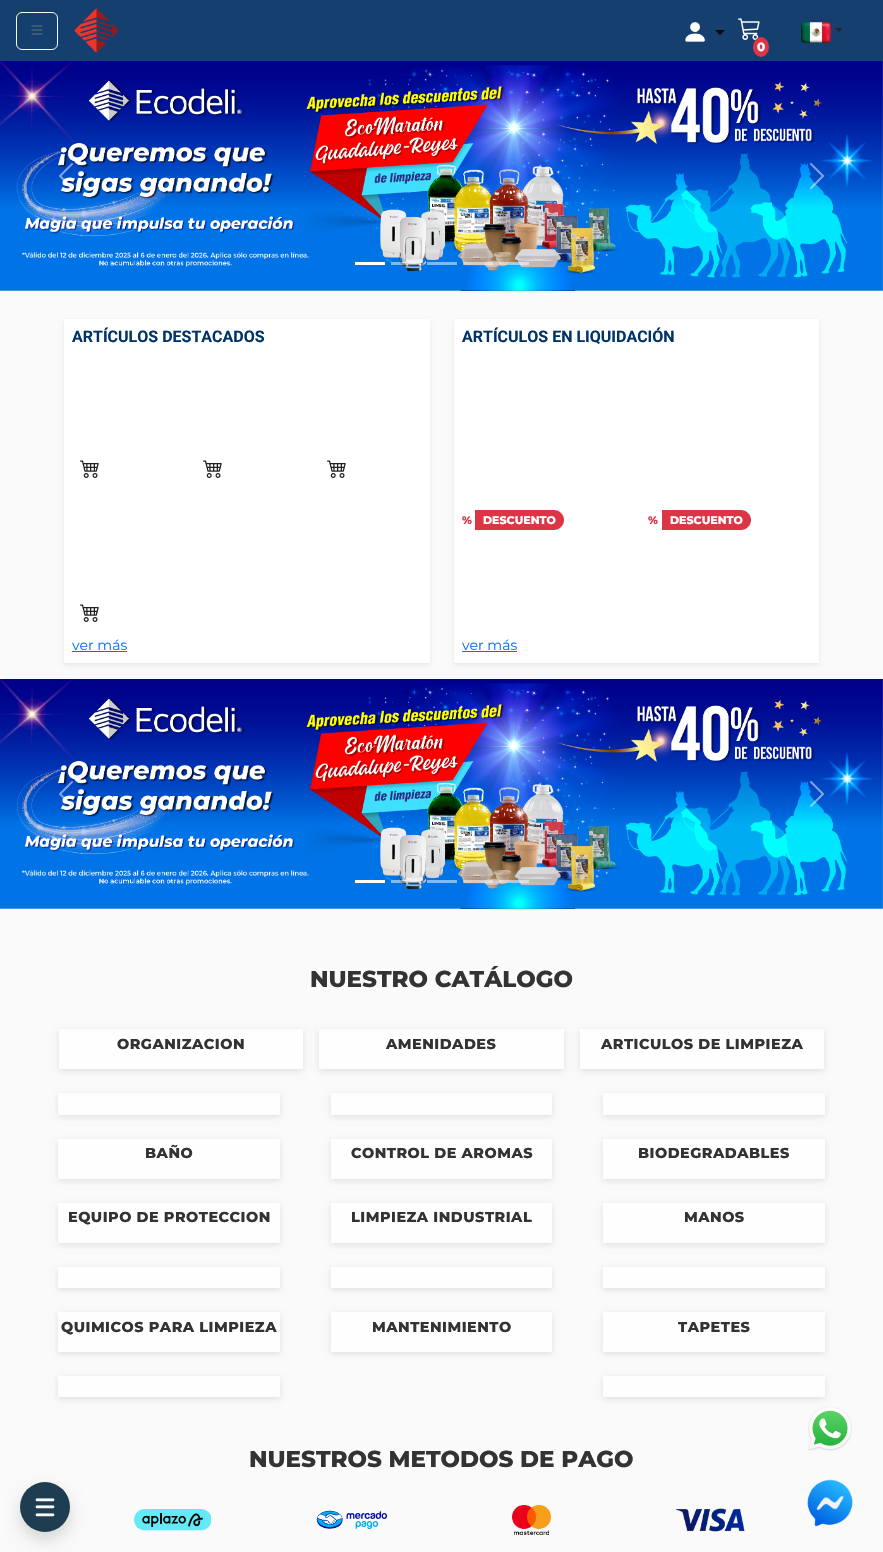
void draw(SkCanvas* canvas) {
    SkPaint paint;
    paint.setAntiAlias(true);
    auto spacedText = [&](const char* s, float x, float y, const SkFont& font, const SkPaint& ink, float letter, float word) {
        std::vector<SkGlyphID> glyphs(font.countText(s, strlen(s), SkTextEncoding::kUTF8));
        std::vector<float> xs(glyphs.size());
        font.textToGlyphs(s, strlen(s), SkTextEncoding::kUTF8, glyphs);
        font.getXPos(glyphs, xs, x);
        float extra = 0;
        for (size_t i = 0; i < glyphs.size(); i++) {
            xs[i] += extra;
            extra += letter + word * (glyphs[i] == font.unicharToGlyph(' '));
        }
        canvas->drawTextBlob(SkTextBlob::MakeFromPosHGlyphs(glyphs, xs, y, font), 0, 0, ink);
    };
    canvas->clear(0xFFFAFAFA);
    paint.setColor(0xFF143F6F);
    canvas->drawRect(SkRect::MakeXYWH(0, 0, 883, 61), paint);
    paint.setStyle(SkPaint::kStroke_Style);
    paint.setStrokeWidth(1);
    paint.setColor(0xFFF8F9FA);
    canvas->drawRoundRect(SkRect::MakeXYWH(16.5f, 12.5f, 41, 37), 5.5f, 5.5f, paint);
    canvas->drawImageRect(SkImages::DeferredFromEncodedData(SkData::MakeFromFileName("img1.png")), SkRect::MakeXYWH(31, 25, 12, 10), SkSamplingOptions());
    canvas->drawImageRect(SkImages::DeferredFromEncodedData(SkData::MakeFromFileName("img2.png")), SkRect::MakeXYWH(74, 8, 45, 45), SkSamplingOptions());
    canvas->drawImageRect(SkImages::DeferredFromEncodedData(SkData::MakeFromFileName("img3.png")), SkRect::MakeXYWH(685, 22, 20, 20), SkSamplingOptions());
    paint.setStyle(SkPaint::kFill_Style);
    paint.setColor(0xFF03080E);
    canvas->drawPath(SkPathBuilder().moveTo(715, 30).lineTo(725, 30).lineTo(720, 35).close().detach(), paint);
    canvas->drawImageRect(SkImages::DeferredFromEncodedData(SkData::MakeFromFileName("img4.png")), SkRect::MakeXYWH(801, 22, 30, 21), SkSamplingOptions());
    paint.setColor(0xFF212529);
    canvas->drawPath(SkPathBuilder().moveTo(835, 28).lineTo(843, 28).lineTo(839, 32).close().detach(), paint);
    canvas->drawImageRect(SkImages::DeferredFromEncodedData(SkData::MakeFromFileName("img5.png")), SkRect::MakeXYWH(738, 18, 22, 22), SkSamplingOptions());
    paint.setColor(0xFFDC3545);
    canvas->drawOval(SkRect::MakeXYWH(753, 37, 16, 20), paint);
    SkFont font1(fontMgr->matchFamilyStyle("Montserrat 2", SkFontStyle(100, SkFontStyle::kNormal_Width, SkFontStyle::kUpright_Slant)), 12);
    font1.setSubpixel(true);
    paint.setColor(0xFFFFFFFF);
    canvas->drawString("0", 757, 51, font1, paint);
    canvas->drawImageRect(SkImages::DeferredFromEncodedData(SkData::MakeFromFileName("img6.png")), SkRect::MakeXYWH(0, 61, 883, 230), SkSamplingOptions());
    canvas->drawImageRect(SkImages::DeferredFromEncodedData(SkData::MakeFromFileName("img7.png")), SkRect::MakeXYWH(59, 163, 14, 25), SkSamplingOptions());
    canvas->drawImageRect(SkImages::DeferredFromEncodedData(SkData::MakeFromFileName("img8.png")), SkRect::MakeXYWH(810, 163, 14, 26), SkSamplingOptions());
    canvas->drawRect(SkRect::MakeXYWH(355, 262, 30, 3), paint);
    paint.setColor(0x80FFFFFF);
    canvas->drawRect(SkRect::MakeXYWH(391, 262, 30, 3), paint);
    paint.setColor(0xFF80B9F3);
    canvas->drawRect(SkRect::MakeXYWH(427, 262, 30, 3), paint);
    paint.setColor(0x80FFFFFF);
    canvas->drawRect(SkRect::MakeXYWH(463, 262, 30, 3), paint);
    canvas->drawRect(SkRect::MakeXYWH(499, 262, 30, 3), paint);
    paint.setColor(0x12000000);
    paint.setMaskFilter(SkMaskFilter::MakeBlur(kNormal_SkBlurStyle, 2));
    canvas->drawRect(SkRect::MakeXYWH(64, 321, 366, 344), paint);
    paint.setMaskFilter(nullptr);
    paint.setColor(0xFFFFFFFF);
    canvas->drawRect(SkRect::MakeXYWH(64, 319, 366, 344), paint);
    SkFont font2(fontMgr->matchFamilyStyle("Roboto", SkFontStyle::Bold()), 16);
    font2.setSubpixel(true);
    paint.setColor(0xFF003366);
    canvas->drawString("ARTÍCULOS DESTACADOS", 72, 342, font2, paint);
    canvas->drawImageRect(SkImages::DeferredFromEncodedData(SkData::MakeFromFileName("img9.png")), SkRect::MakeXYWH(80, 460, 19, 18), SkSamplingOptions());
    canvas->drawImageRect(SkImages::DeferredFromEncodedData(SkData::MakeFromFileName("img9.png")), SkRect::MakeXYWH(203, 460, 19, 18), SkSamplingOptions());
    canvas->drawImageRect(SkImages::DeferredFromEncodedData(SkData::MakeFromFileName("img9.png")), SkRect::MakeXYWH(327, 460, 19, 18), SkSamplingOptions());
    canvas->drawImageRect(SkImages::DeferredFromEncodedData(SkData::MakeFromFileName("img9.png")), SkRect::MakeXYWH(80, 604, 19, 18), SkSamplingOptions());
    SkFont font3(fontMgr->matchFamilyStyle("Montserrat", SkFontStyle(100, SkFontStyle::kNormal_Width, SkFontStyle::kUpright_Slant)), 14);
    font3.setSubpixel(true);
    paint.setColor(0xFF0D6EFD);
    canvas->drawString("ver más", 72, 650, font3, paint);
    canvas->drawRect(SkRect::MakeXYWH(72, 651, 55, 1), paint);
    paint.setColor(0x12000000);
    paint.setMaskFilter(SkMaskFilter::MakeBlur(kNormal_SkBlurStyle, 2));
    canvas->drawRect(SkRect::MakeXYWH(454, 321, 365, 344), paint);
    paint.setMaskFilter(nullptr);
    paint.setColor(0xFFFFFFFF);
    canvas->drawRect(SkRect::MakeXYWH(454, 319, 365, 344), paint);
    paint.setColor(0xFF003366);
    canvas->drawString("ARTÍCULOS EN LIQUIDACIÓN", 462, 342, font2, paint);
    SkFont font4(fontMgr->matchFamilyStyle("Montserrat 2", SkFontStyle(100, SkFontStyle::kNormal_Width, SkFontStyle::kUpright_Slant)), 11);
    font4.setSubpixel(true);
    paint.setColor(0xFFDC3545);
    canvas->drawString("%", 462, 524, font4, paint);
    canvas->drawPath(SkPathBuilder().moveTo(475, 510).lineTo(554, 510).cubicTo(559.5f, 510, 564, 514.5f, 564, 520).cubicTo(564, 525.5f, 559.5f, 530, 554, 530).lineTo(475, 530).close().detach(), paint);
    paint.setColor(0xFFFFFFFF);
    canvas->drawString("DESCUENTO", 483, 524, font4, paint);
    paint.setColor(0xFFDC3545);
    canvas->drawString("%", 648, 524, font4, paint);
    canvas->drawPath(SkPathBuilder().moveTo(662, 510).lineTo(741, 510).cubicTo(746.5f, 510, 751, 514.5f, 751, 520).cubicTo(751, 525.5f, 746.5f, 530, 741, 530).lineTo(662, 530).close().detach(), paint);
    paint.setColor(0xFFFFFFFF);
    canvas->drawString("DESCUENTO", 670, 524, font4, paint);
    paint.setColor(0xFF0D6EFD);
    canvas->drawString("ver más", 462, 650, font3, paint);
    canvas->drawRect(SkRect::MakeXYWH(462, 651, 55, 1), paint);
    canvas->drawImageRect(SkImages::DeferredFromEncodedData(SkData::MakeFromFileName("img6.png")), SkRect::MakeXYWH(0, 679, 883, 230), SkSamplingOptions());
    canvas->drawImageRect(SkImages::DeferredFromEncodedData(SkData::MakeFromFileName("img7.png")), SkRect::MakeXYWH(59, 781, 14, 25), SkSamplingOptions());
    canvas->drawImageRect(SkImages::DeferredFromEncodedData(SkData::MakeFromFileName("img8.png")), SkRect::MakeXYWH(810, 781, 14, 26), SkSamplingOptions());
    paint.setColor(0xFFFFFFFF);
    canvas->drawRect(SkRect::MakeXYWH(355, 880, 30, 3), paint);
    paint.setColor(0x80FFFFFF);
    canvas->drawRect(SkRect::MakeXYWH(391, 880, 30, 3), paint);
    paint.setColor(0xFF80B9F3);
    canvas->drawRect(SkRect::MakeXYWH(427, 880, 30, 3), paint);
    paint.setColor(0x80FFFFFF);
    canvas->drawRect(SkRect::MakeXYWH(463, 880, 30, 3), paint);
    canvas->drawRect(SkRect::MakeXYWH(499, 880, 30, 3), paint);
    SkFont font5(fontMgr->matchFamilyStyle("Montserrat 2", SkFontStyle(100, SkFontStyle::kNormal_Width, SkFontStyle::kUpright_Slant)), 23);
    font5.setSubpixel(true);
    paint.setColor(0xFF333333);
    canvas->drawString("NUESTRO CATÁLOGO", 310, 987, font5, paint);
    paint.setColor(0x1A000000);
    paint.setMaskFilter(SkMaskFilter::MakeBlur(kNormal_SkBlurStyle, 3));
    canvas->drawRect(SkRect::MakeXYWH(59, 1031, 244, 40), paint);
    paint.setMaskFilter(nullptr);
    paint.setColor(0xFFFEFEFE);
    canvas->drawRect(SkRect::MakeXYWH(59, 1029, 244, 40), paint);
    SkFont font6(fontMgr->matchFamilyStyle("Montserrat 2", SkFontStyle(100, SkFontStyle::kNormal_Width, SkFontStyle::kUpright_Slant)), 14.4f);
    font6.setSubpixel(true);
    paint.setColor(0xFF333333);
    spacedText("ORGANIZACION", 117, 1049, font6, paint, 0.5f, 0);
    paint.setColor(0x1A000000);
    paint.setMaskFilter(SkMaskFilter::MakeBlur(kNormal_SkBlurStyle, 3));
    canvas->drawRect(SkRect::MakeXYWH(319, 1031, 245, 40), paint);
    paint.setMaskFilter(nullptr);
    paint.setColor(0xFFFEFEFE);
    canvas->drawRect(SkRect::MakeXYWH(319, 1029, 245, 40), paint);
    paint.setColor(0xFF333333);
    spacedText("AMENIDADES", 386, 1049, font6, paint, 0.5f, 0);
    paint.setColor(0x1A000000);
    paint.setMaskFilter(SkMaskFilter::MakeBlur(kNormal_SkBlurStyle, 3));
    canvas->drawRect(SkRect::MakeXYWH(580, 1031, 244, 40), paint);
    paint.setMaskFilter(nullptr);
    paint.setColor(0xFFFEFEFE);
    canvas->drawRect(SkRect::MakeXYWH(580, 1029, 244, 40), paint);
    paint.setColor(0xFF333333);
    spacedText("ARTICULOS DE LIMPIEZA", 601, 1049, font6, paint, 0.5f, 0);
    paint.setColor(0x1A000000);
    paint.setMaskFilter(SkMaskFilter::MakeBlur(kNormal_SkBlurStyle, 3));
    canvas->drawRect(SkRect::MakeXYWH(58, 1095, 222, 22), paint);
    paint.setMaskFilter(nullptr);
    paint.setColor(0xFFFEFEFE);
    canvas->drawRect(SkRect::MakeXYWH(58, 1093, 222, 22), paint);
    paint.setColor(0x1A000000);
    paint.setMaskFilter(SkMaskFilter::MakeBlur(kNormal_SkBlurStyle, 3));
    canvas->drawRect(SkRect::MakeXYWH(331, 1095, 221, 22), paint);
    paint.setMaskFilter(nullptr);
    paint.setColor(0xFFFEFEFE);
    canvas->drawRect(SkRect::MakeXYWH(331, 1093, 221, 22), paint);
    paint.setColor(0x1A000000);
    paint.setMaskFilter(SkMaskFilter::MakeBlur(kNormal_SkBlurStyle, 3));
    canvas->drawRect(SkRect::MakeXYWH(603, 1095, 222, 22), paint);
    paint.setMaskFilter(nullptr);
    paint.setColor(0xFFFEFEFE);
    canvas->drawRect(SkRect::MakeXYWH(603, 1093, 222, 22), paint);
    paint.setColor(0x1A000000);
    paint.setMaskFilter(SkMaskFilter::MakeBlur(kNormal_SkBlurStyle, 3));
    canvas->drawRect(SkRect::MakeXYWH(58, 1141, 222, 40), paint);
    paint.setMaskFilter(nullptr);
    paint.setColor(0xFFFEFEFE);
    canvas->drawRect(SkRect::MakeXYWH(58, 1139, 222, 40), paint);
    paint.setColor(0xFF333333);
    spacedText("BAÑO", 145, 1158, font6, paint, 0.5f, 0);
    paint.setColor(0x1A000000);
    paint.setMaskFilter(SkMaskFilter::MakeBlur(kNormal_SkBlurStyle, 3));
    canvas->drawRect(SkRect::MakeXYWH(331, 1141, 221, 40), paint);
    paint.setMaskFilter(nullptr);
    paint.setColor(0xFFFEFEFE);
    canvas->drawRect(SkRect::MakeXYWH(331, 1139, 221, 40), paint);
    paint.setColor(0xFF333333);
    spacedText("CONTROL DE AROMAS", 351, 1158, font6, paint, 0.5f, 0);
    paint.setColor(0x1A000000);
    paint.setMaskFilter(SkMaskFilter::MakeBlur(kNormal_SkBlurStyle, 3));
    canvas->drawRect(SkRect::MakeXYWH(603, 1141, 222, 40), paint);
    paint.setMaskFilter(nullptr);
    paint.setColor(0xFFFEFEFE);
    canvas->drawRect(SkRect::MakeXYWH(603, 1139, 222, 40), paint);
    paint.setColor(0xFF333333);
    spacedText("BIODEGRADABLES", 638, 1158, font6, paint, 0.5f, 0);
    paint.setColor(0x1A000000);
    paint.setMaskFilter(SkMaskFilter::MakeBlur(kNormal_SkBlurStyle, 3));
    canvas->drawRect(SkRect::MakeXYWH(58, 1205, 222, 40), paint);
    paint.setMaskFilter(nullptr);
    paint.setColor(0xFFFEFEFE);
    canvas->drawRect(SkRect::MakeXYWH(58, 1203, 222, 40), paint);
    paint.setColor(0xFF333333);
    spacedText("EQUIPO DE PROTECCION", 68, 1222, font6, paint, 0.5f, 0);
    paint.setColor(0x1A000000);
    paint.setMaskFilter(SkMaskFilter::MakeBlur(kNormal_SkBlurStyle, 3));
    canvas->drawRect(SkRect::MakeXYWH(331, 1205, 221, 40), paint);
    paint.setMaskFilter(nullptr);
    paint.setColor(0xFFFEFEFE);
    canvas->drawRect(SkRect::MakeXYWH(331, 1203, 221, 40), paint);
    paint.setColor(0xFF333333);
    spacedText("LIMPIEZA INDUSTRIAL", 351, 1222, font6, paint, 0.5f, 0);
    paint.setColor(0x1A000000);
    paint.setMaskFilter(SkMaskFilter::MakeBlur(kNormal_SkBlurStyle, 3));
    canvas->drawRect(SkRect::MakeXYWH(603, 1205, 222, 40), paint);
    paint.setMaskFilter(nullptr);
    paint.setColor(0xFFFEFEFE);
    canvas->drawRect(SkRect::MakeXYWH(603, 1203, 222, 40), paint);
    paint.setColor(0xFF333333);
    spacedText("MANOS", 684, 1222, font6, paint, 0.5f, 0);
    paint.setColor(0x1A000000);
    paint.setMaskFilter(SkMaskFilter::MakeBlur(kNormal_SkBlurStyle, 3));
    canvas->drawRect(SkRect::MakeXYWH(58, 1269, 222, 21), paint);
    paint.setMaskFilter(nullptr);
    paint.setColor(0xFFFEFEFE);
    canvas->drawRect(SkRect::MakeXYWH(58, 1267, 222, 21), paint);
    paint.setColor(0x1A000000);
    paint.setMaskFilter(SkMaskFilter::MakeBlur(kNormal_SkBlurStyle, 3));
    canvas->drawRect(SkRect::MakeXYWH(331, 1269, 221, 21), paint);
    paint.setMaskFilter(nullptr);
    paint.setColor(0xFFFEFEFE);
    canvas->drawRect(SkRect::MakeXYWH(331, 1267, 221, 21), paint);
    paint.setColor(0x1A000000);
    paint.setMaskFilter(SkMaskFilter::MakeBlur(kNormal_SkBlurStyle, 3));
    canvas->drawRect(SkRect::MakeXYWH(603, 1269, 222, 21), paint);
    paint.setMaskFilter(nullptr);
    paint.setColor(0xFFFEFEFE);
    canvas->drawRect(SkRect::MakeXYWH(603, 1267, 222, 21), paint);
    paint.setColor(0x1A000000);
    paint.setMaskFilter(SkMaskFilter::MakeBlur(kNormal_SkBlurStyle, 3));
    canvas->drawRect(SkRect::MakeXYWH(58, 1314, 222, 40), paint);
    paint.setMaskFilter(nullptr);
    paint.setColor(0xFFFEFEFE);
    canvas->drawRect(SkRect::MakeXYWH(58, 1312, 222, 40), paint);
    paint.setColor(0xFF333333);
    spacedText("QUIMICOS PARA LIMPIEZA", 61, 1332, font6, paint, 0.5f, 0);
    paint.setColor(0x1A000000);
    paint.setMaskFilter(SkMaskFilter::MakeBlur(kNormal_SkBlurStyle, 3));
    canvas->drawRect(SkRect::MakeXYWH(331, 1314, 221, 40), paint);
    paint.setMaskFilter(nullptr);
    paint.setColor(0xFFFEFEFE);
    canvas->drawRect(SkRect::MakeXYWH(331, 1312, 221, 40), paint);
    paint.setColor(0xFF333333);
    spacedText("MANTENIMIENTO", 372, 1332, font6, paint, 0.5f, 0);
    paint.setColor(0x1A000000);
    paint.setMaskFilter(SkMaskFilter::MakeBlur(kNormal_SkBlurStyle, 3));
    canvas->drawRect(SkRect::MakeXYWH(603, 1314, 222, 40), paint);
    paint.setMaskFilter(nullptr);
    paint.setColor(0xFFFEFEFE);
    canvas->drawRect(SkRect::MakeXYWH(603, 1312, 222, 40), paint);
    paint.setColor(0xFF333333);
    spacedText("TAPETES", 678, 1332, font6, paint, 0.5f, 0);
    paint.setColor(0x1A000000);
    paint.setMaskFilter(SkMaskFilter::MakeBlur(kNormal_SkBlurStyle, 3));
    canvas->drawRect(SkRect::MakeXYWH(58, 1378, 222, 21), paint);
    paint.setMaskFilter(nullptr);
    paint.setColor(0xFFFEFEFE);
    canvas->drawRect(SkRect::MakeXYWH(58, 1376, 222, 21), paint);
    paint.setColor(0x1A000000);
    paint.setMaskFilter(SkMaskFilter::MakeBlur(kNormal_SkBlurStyle, 3));
    canvas->drawRect(SkRect::MakeXYWH(603, 1378, 222, 21), paint);
    paint.setMaskFilter(nullptr);
    paint.setColor(0xFFFEFEFE);
    canvas->drawRect(SkRect::MakeXYWH(603, 1376, 222, 21), paint);
    paint.setColor(0xFF333333);
    canvas->drawString("NUESTROS METODOS DE PAGO", 249, 1467, font5, paint);
    canvas->drawImageRect(SkImages::DeferredFromEncodedData(SkData::MakeFromFileName("img10.png")), SkRect::MakeXYWH(134, 1509, 77, 22), SkSamplingOptions());
    canvas->drawImageRect(SkImages::DeferredFromEncodedData(SkData::MakeFromFileName("img11.png")), SkRect::MakeXYWH(316, 1510, 72, 20), SkSamplingOptions());
    canvas->drawImageRect(SkImages::DeferredFromEncodedData(SkData::MakeFromFileName("img12.png")), SkRect::MakeXYWH(512, 1505, 39, 30), SkSamplingOptions());
    canvas->drawImageRect(SkImages::DeferredFromEncodedData(SkData::MakeFromFileName("img13.png")), SkRect::MakeXYWH(676, 1508, 69, 24), SkSamplingOptions());
    paint.setColor(0x26000000);
    paint.setMaskFilter(SkMaskFilter::MakeBlur(kNormal_SkBlurStyle, 8));
    canvas->drawRoundRect(SkRect::MakeXYWH(20, 1490, 50, 50), 25, 25, paint);
    paint.setMaskFilter(nullptr);
    paint.setColor(0xFF1F3D51);
    canvas->drawCircle(45, 1507, 25, paint);
    canvas->drawImageRect(SkImages::DeferredFromEncodedData(SkData::MakeFromFileName("img14.png")), SkRect::MakeXYWH(35, 1498, 20, 4), SkSamplingOptions());
    canvas->drawImageRect(SkImages::DeferredFromEncodedData(SkData::MakeFromFileName("img14.png")), SkRect::MakeXYWH(35, 1505, 20, 4), SkSamplingOptions());
    canvas->drawImageRect(SkImages::DeferredFromEncodedData(SkData::MakeFromFileName("img14.png")), SkRect::MakeXYWH(35, 1513, 20, 4), SkSamplingOptions());
    canvas->drawImageRect(SkImages::DeferredFromEncodedData(SkData::MakeFromFileName("img15.png")), SkRect::MakeXYWH(808, 1407, 44, 44), SkSamplingOptions());
    canvas->drawImageRect(SkImages::DeferredFromEncodedData(SkData::MakeFromFileName("img16.png")), SkRect::MakeXYWH(807, 1479, 46, 48), SkSamplingOptions());
}
